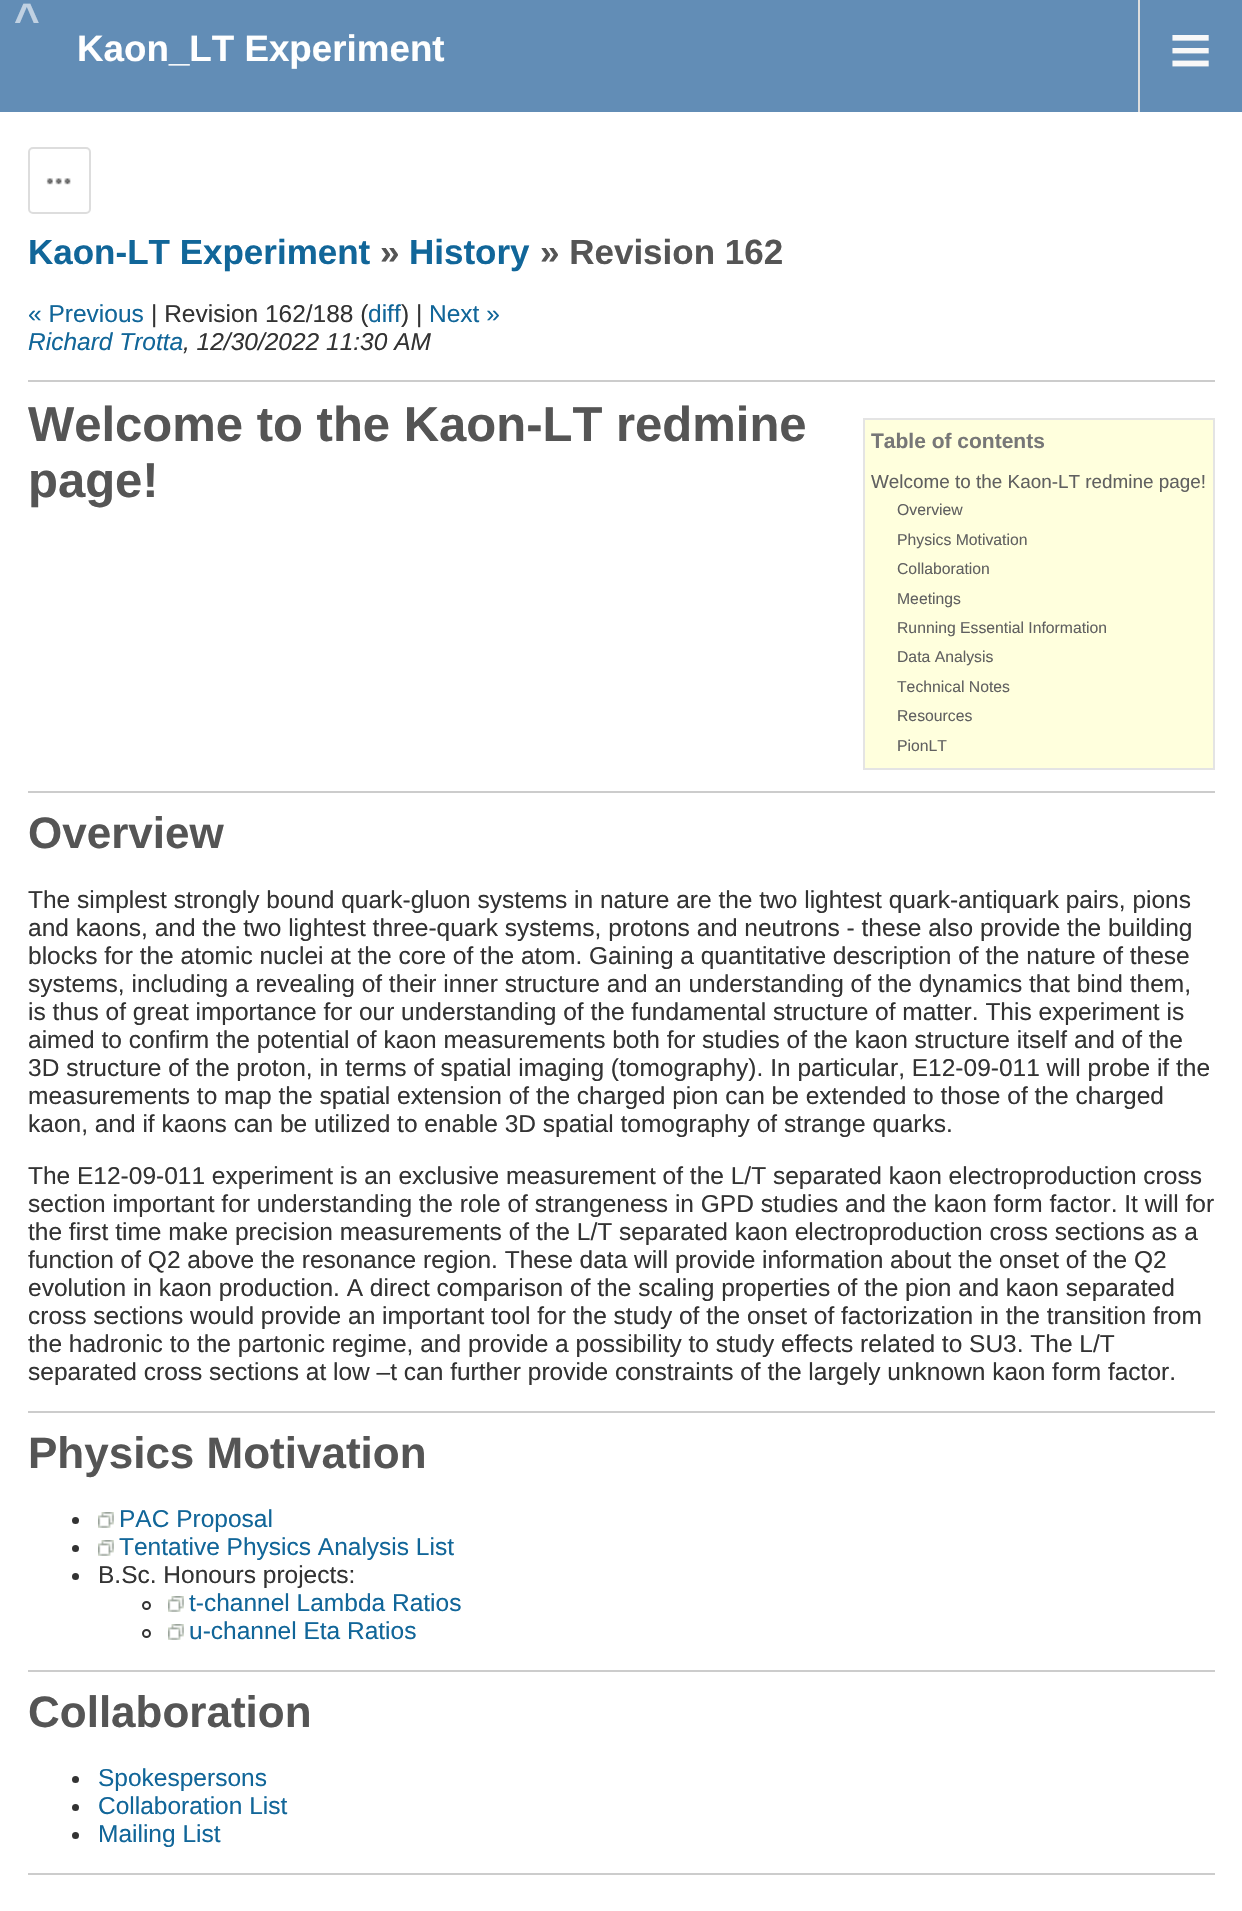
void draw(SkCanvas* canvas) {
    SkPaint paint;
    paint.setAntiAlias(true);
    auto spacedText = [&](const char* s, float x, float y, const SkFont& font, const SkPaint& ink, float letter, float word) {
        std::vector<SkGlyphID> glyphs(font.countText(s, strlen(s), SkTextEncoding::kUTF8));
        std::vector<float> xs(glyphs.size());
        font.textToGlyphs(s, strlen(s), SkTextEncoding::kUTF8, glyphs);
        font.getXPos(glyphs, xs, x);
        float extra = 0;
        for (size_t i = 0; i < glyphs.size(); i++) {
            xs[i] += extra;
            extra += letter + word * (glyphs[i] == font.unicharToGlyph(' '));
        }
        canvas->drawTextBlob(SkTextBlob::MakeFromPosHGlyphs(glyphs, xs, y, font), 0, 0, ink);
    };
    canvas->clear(0xFFFFFFFF);
    paint.setColor(0xFF628DB6);
    canvas->drawRect(SkRect::MakeXYWH(0, 0, 1242, 112), paint);
    SkFont font1(fontMgr->matchFamilyStyle("Liberation Sans", SkFontStyle::Bold()), 44);
    font1.setSubpixel(true);
    paint.setColor(0xFFC0D1E2);
    spacedText("^", 14, 34, font1, paint, 6, 0);
    SkFont font2(fontMgr->matchFamilyStyle("Liberation Sans", SkFontStyle::Bold()), 36.75f);
    font2.setSubpixel(true);
    paint.setColor(0xFFFFFFFF);
    canvas->drawString("Kaon_LT Experiment", 77, 61, font2, paint);
    paint.setColor(0xFFDDDDDD);
    canvas->drawRect(SkRect::MakeXYWH(1138, 0, 2, 112), paint);
    SkFont font3(fontMgr->matchFamilyStyle("Liberation Sans", SkFontStyle::Normal()), 74);
    font3.setSubpixel(true);
    paint.setColor(0xFFF8F8F8);
    canvas->drawString("≡", 1169, 75, font3, paint);
    paint.setStyle(SkPaint::kStroke_Style);
    paint.setStrokeWidth(2);
    paint.setColor(0xFFDDDDDD);
    canvas->drawRoundRect(SkRect::MakeXYWH(29, 148, 61, 65), 4, 4, paint);
    canvas->drawImageRect(SkImages::DeferredFromEncodedData(SkData::MakeFromFileName("img1.png")), SkRect::MakeXYWH(46, 178, 25, 7), SkSamplingOptions());
    SkFont font4(fontMgr->matchFamilyStyle("Liberation Sans", SkFontStyle::Bold()), 35);
    font4.setSubpixel(true);
    paint.setStyle(SkPaint::kFill_Style);
    paint.setColor(0xFF116699);
    canvas->drawString("Kaon-LT Experiment", 28, 264, font4, paint);
    paint.setColor(0xFF555555);
    canvas->drawString("»", 380, 264, font4, paint);
    paint.setColor(0xFF116699);
    canvas->drawString("History", 409, 264, font4, paint);
    paint.setColor(0xFF555555);
    canvas->drawString("» Revision 162", 540, 264, font4, paint);
    SkFont font5(fontMgr->matchFamilyStyle("Liberation Sans", SkFontStyle::Normal()), 24.5f);
    font5.setSubpixel(true);
    paint.setColor(0xFF116699);
    canvas->drawString("« Previous", 28, 322, font5, paint);
    paint.setColor(0xFF333333);
    canvas->drawString("| Revision 162/188 (", 151, 322, font5, paint);
    paint.setColor(0xFF116699);
    canvas->drawString("diff", 368, 322, font5, paint);
    paint.setColor(0xFF333333);
    canvas->drawString(") |", 401, 322, font5, paint);
    paint.setColor(0xFF116699);
    canvas->drawString("Next »", 429, 322, font5, paint);
    SkFont font6(fontMgr->matchFamilyStyle("Liberation Sans", SkFontStyle::Italic()), 24.5f);
    font6.setSubpixel(true);
    canvas->drawString("Richard Trotta", 28, 350, font6, paint);
    paint.setColor(0xFF333333);
    canvas->drawString(", 12/30/2022 11:30 AM", 183, 350, font6, paint);
    paint.setColor(0xFFCCCCCC);
    canvas->drawRect(SkRect::MakeXYWH(28, 380, 1187, 2), paint);
    SkFont font7(fontMgr->matchFamilyStyle("Liberation Sans", SkFontStyle::Bold()), 49);
    font7.setSubpixel(true);
    paint.setColor(0xFF555555);
    canvas->drawString("Welcome to the Kaon-LT redmine", 28, 441, font7, paint);
    canvas->drawString("page!", 28, 497, font7, paint);
    paint.setColor(0xFFFFFFDD);
    canvas->drawRect(SkRect::MakeXYWH(864, 419, 350, 350), paint);
    paint.setStyle(SkPaint::kStroke_Style);
    paint.setColor(0xFFE4E4E4);
    canvas->drawRect(SkRect::MakeXYWH(864, 419, 350, 350), paint);
    SkFont font8(fontMgr->matchFamilyStyle("Liberation Sans", SkFontStyle::Bold()), 21);
    font8.setSubpixel(true);
    paint.setStyle(SkPaint::kFill_Style);
    paint.setColor(0xFF777777);
    canvas->drawString("Table of contents", 871, 448, font8, paint);
    SkFont font9(fontMgr->matchFamilyStyle("Liberation Sans", SkFontStyle::Normal()), 18.9f);
    font9.setSubpixel(true);
    paint.setColor(0xFF606060);
    canvas->drawString("Welcome to the Kaon-LT redmine page!", 871, 488, font9, paint);
    SkFont font10(fontMgr->matchFamilyStyle("Liberation Sans", SkFontStyle::Normal()), 15.75f);
    font10.setSubpixel(true);
    canvas->drawString("Overview", 897, 515, font10, paint);
    canvas->drawString("Physics Motivation", 897, 545, font10, paint);
    canvas->drawString("Collaboration", 897, 574, font10, paint);
    canvas->drawString("Meetings", 897, 604, font10, paint);
    canvas->drawString("Running Essential Information", 897, 633, font10, paint);
    canvas->drawString("Data Analysis", 897, 662, font10, paint);
    canvas->drawString("Technical Notes", 897, 692, font10, paint);
    canvas->drawString("Resources", 897, 721, font10, paint);
    canvas->drawString("PionLT", 897, 751, font10, paint);
    paint.setColor(0xFFCCCCCC);
    canvas->drawRect(SkRect::MakeXYWH(28, 791, 1187, 2), paint);
    paint.setColor(0xFF555555);
    canvas->drawString("Overview", 28, 848, font1, paint);
    paint.setColor(0xFF333333);
    canvas->drawString("The simplest strongly bound quark-gluon systems in nature are the two lightest quark-antiquark pairs, pions", 28, 908, font5, paint);
    canvas->drawString("and kaons, and the two lightest three-quark systems, protons and neutrons - these also provide the building", 28, 936, font5, paint);
    canvas->drawString("blocks for the atomic nuclei at the core of the atom. Gaining a quantitative description of the nature of these", 28, 964, font5, paint);
    canvas->drawString("systems, including a revealing of their inner structure and an understanding of the dynamics that bind them,", 28, 992, font5, paint);
    canvas->drawString("is thus of great importance for our understanding of the fundamental structure of matter. This experiment is", 28, 1020, font5, paint);
    canvas->drawString("aimed to confirm the potential of kaon measurements both for studies of the kaon structure itself and of the", 28, 1048, font5, paint);
    canvas->drawString("3D structure of the proton, in terms of spatial imaging (tomography). In particular, E12-09-011 will probe if the", 28, 1076, font5, paint);
    canvas->drawString("measurements to map the spatial extension of the charged pion can be extended to those of the charged", 28, 1104, font5, paint);
    canvas->drawString("kaon, and if kaons can be utilized to enable 3D spatial tomography of strange quarks.", 28, 1132, font5, paint);
    canvas->drawString("The E12-09-011 experiment is an exclusive measurement of the L/T separated kaon electroproduction cross", 28, 1184, font5, paint);
    canvas->drawString("section important for understanding the role of strangeness in GPD studies and the kaon form factor. It will for", 28, 1212, font5, paint);
    canvas->drawString("the first time make precision measurements of the L/T separated kaon electroproduction cross sections as a", 28, 1240, font5, paint);
    canvas->drawString("function of Q2 above the resonance region. These data will provide information about the onset of the Q2", 28, 1268, font5, paint);
    canvas->drawString("evolution in kaon production. A direct comparison of the scaling properties of the pion and kaon separated", 28, 1296, font5, paint);
    canvas->drawString("cross sections would provide an important tool for the study of the onset of factorization in the transition from", 28, 1324, font5, paint);
    canvas->drawString("the hadronic to the partonic regime, and provide a possibility to study effects related to SU3. The L/T", 28, 1352, font5, paint);
    canvas->drawString("separated cross sections at low –t can further provide constraints of the largely unknown kaon form factor.", 28, 1380, font5, paint);
    paint.setColor(0xFFCCCCCC);
    canvas->drawRect(SkRect::MakeXYWH(28, 1411, 1187, 2), paint);
    paint.setColor(0xFF555555);
    canvas->drawString("Physics Motivation", 28, 1468, font1, paint);
    paint.setColor(0xFF333333);
    canvas->drawCircle(75.5f, 1520.5f, 3.5f, paint);
    canvas->drawImageRect(SkImages::DeferredFromEncodedData(SkData::MakeFromFileName("img2.png")), SkRect::MakeXYWH(98, 1512, 16, 16), SkSamplingOptions());
    paint.setColor(0xFF116699);
    canvas->drawString("PAC Proposal", 119, 1527, font5, paint);
    paint.setColor(0xFF333333);
    canvas->drawCircle(75.5f, 1548.5f, 3.5f, paint);
    canvas->drawImageRect(SkImages::DeferredFromEncodedData(SkData::MakeFromFileName("img2.png")), SkRect::MakeXYWH(98, 1540, 16, 16), SkSamplingOptions());
    paint.setColor(0xFF116699);
    canvas->drawString("Tentative Physics Analysis List", 119, 1555, font5, paint);
    paint.setColor(0xFF333333);
    canvas->drawCircle(75.5f, 1576.5f, 3.5f, paint);
    canvas->drawString("B.Sc. Honours projects:", 98, 1583, font5, paint);
    paint.setStyle(SkPaint::kStroke_Style);
    canvas->drawCircle(146.5f, 1605.5f, 3.5f, paint);
    canvas->drawImageRect(SkImages::DeferredFromEncodedData(SkData::MakeFromFileName("img2.png")), SkRect::MakeXYWH(168, 1596, 16, 16), SkSamplingOptions());
    paint.setStyle(SkPaint::kFill_Style);
    paint.setColor(0xFF116699);
    canvas->drawString("t-channel Lambda Ratios", 189, 1611, font5, paint);
    paint.setStyle(SkPaint::kStroke_Style);
    paint.setColor(0xFF333333);
    canvas->drawCircle(146.5f, 1633.5f, 3.5f, paint);
    canvas->drawImageRect(SkImages::DeferredFromEncodedData(SkData::MakeFromFileName("img2.png")), SkRect::MakeXYWH(168, 1624, 16, 16), SkSamplingOptions());
    paint.setStyle(SkPaint::kFill_Style);
    paint.setColor(0xFF116699);
    canvas->drawString("u-channel Eta Ratios", 189, 1639, font5, paint);
    paint.setColor(0xFFCCCCCC);
    canvas->drawRect(SkRect::MakeXYWH(28, 1670, 1187, 2), paint);
    paint.setColor(0xFF555555);
    canvas->drawString("Collaboration", 28, 1727, font1, paint);
    paint.setColor(0xFF333333);
    canvas->drawCircle(75.5f, 1779.5f, 3.5f, paint);
    paint.setColor(0xFF116699);
    canvas->drawString("Spokespersons", 98, 1786, font5, paint);
    paint.setColor(0xFF333333);
    canvas->drawCircle(75.5f, 1807.5f, 3.5f, paint);
    paint.setColor(0xFF116699);
    canvas->drawString("Collaboration List", 98, 1814, font5, paint);
    paint.setColor(0xFF333333);
    canvas->drawCircle(75.5f, 1835.5f, 3.5f, paint);
    paint.setColor(0xFF116699);
    canvas->drawString("Mailing List", 98, 1842, font5, paint);
    paint.setColor(0xFFCCCCCC);
    canvas->drawRect(SkRect::MakeXYWH(28, 1873, 1187, 2), paint);
}
